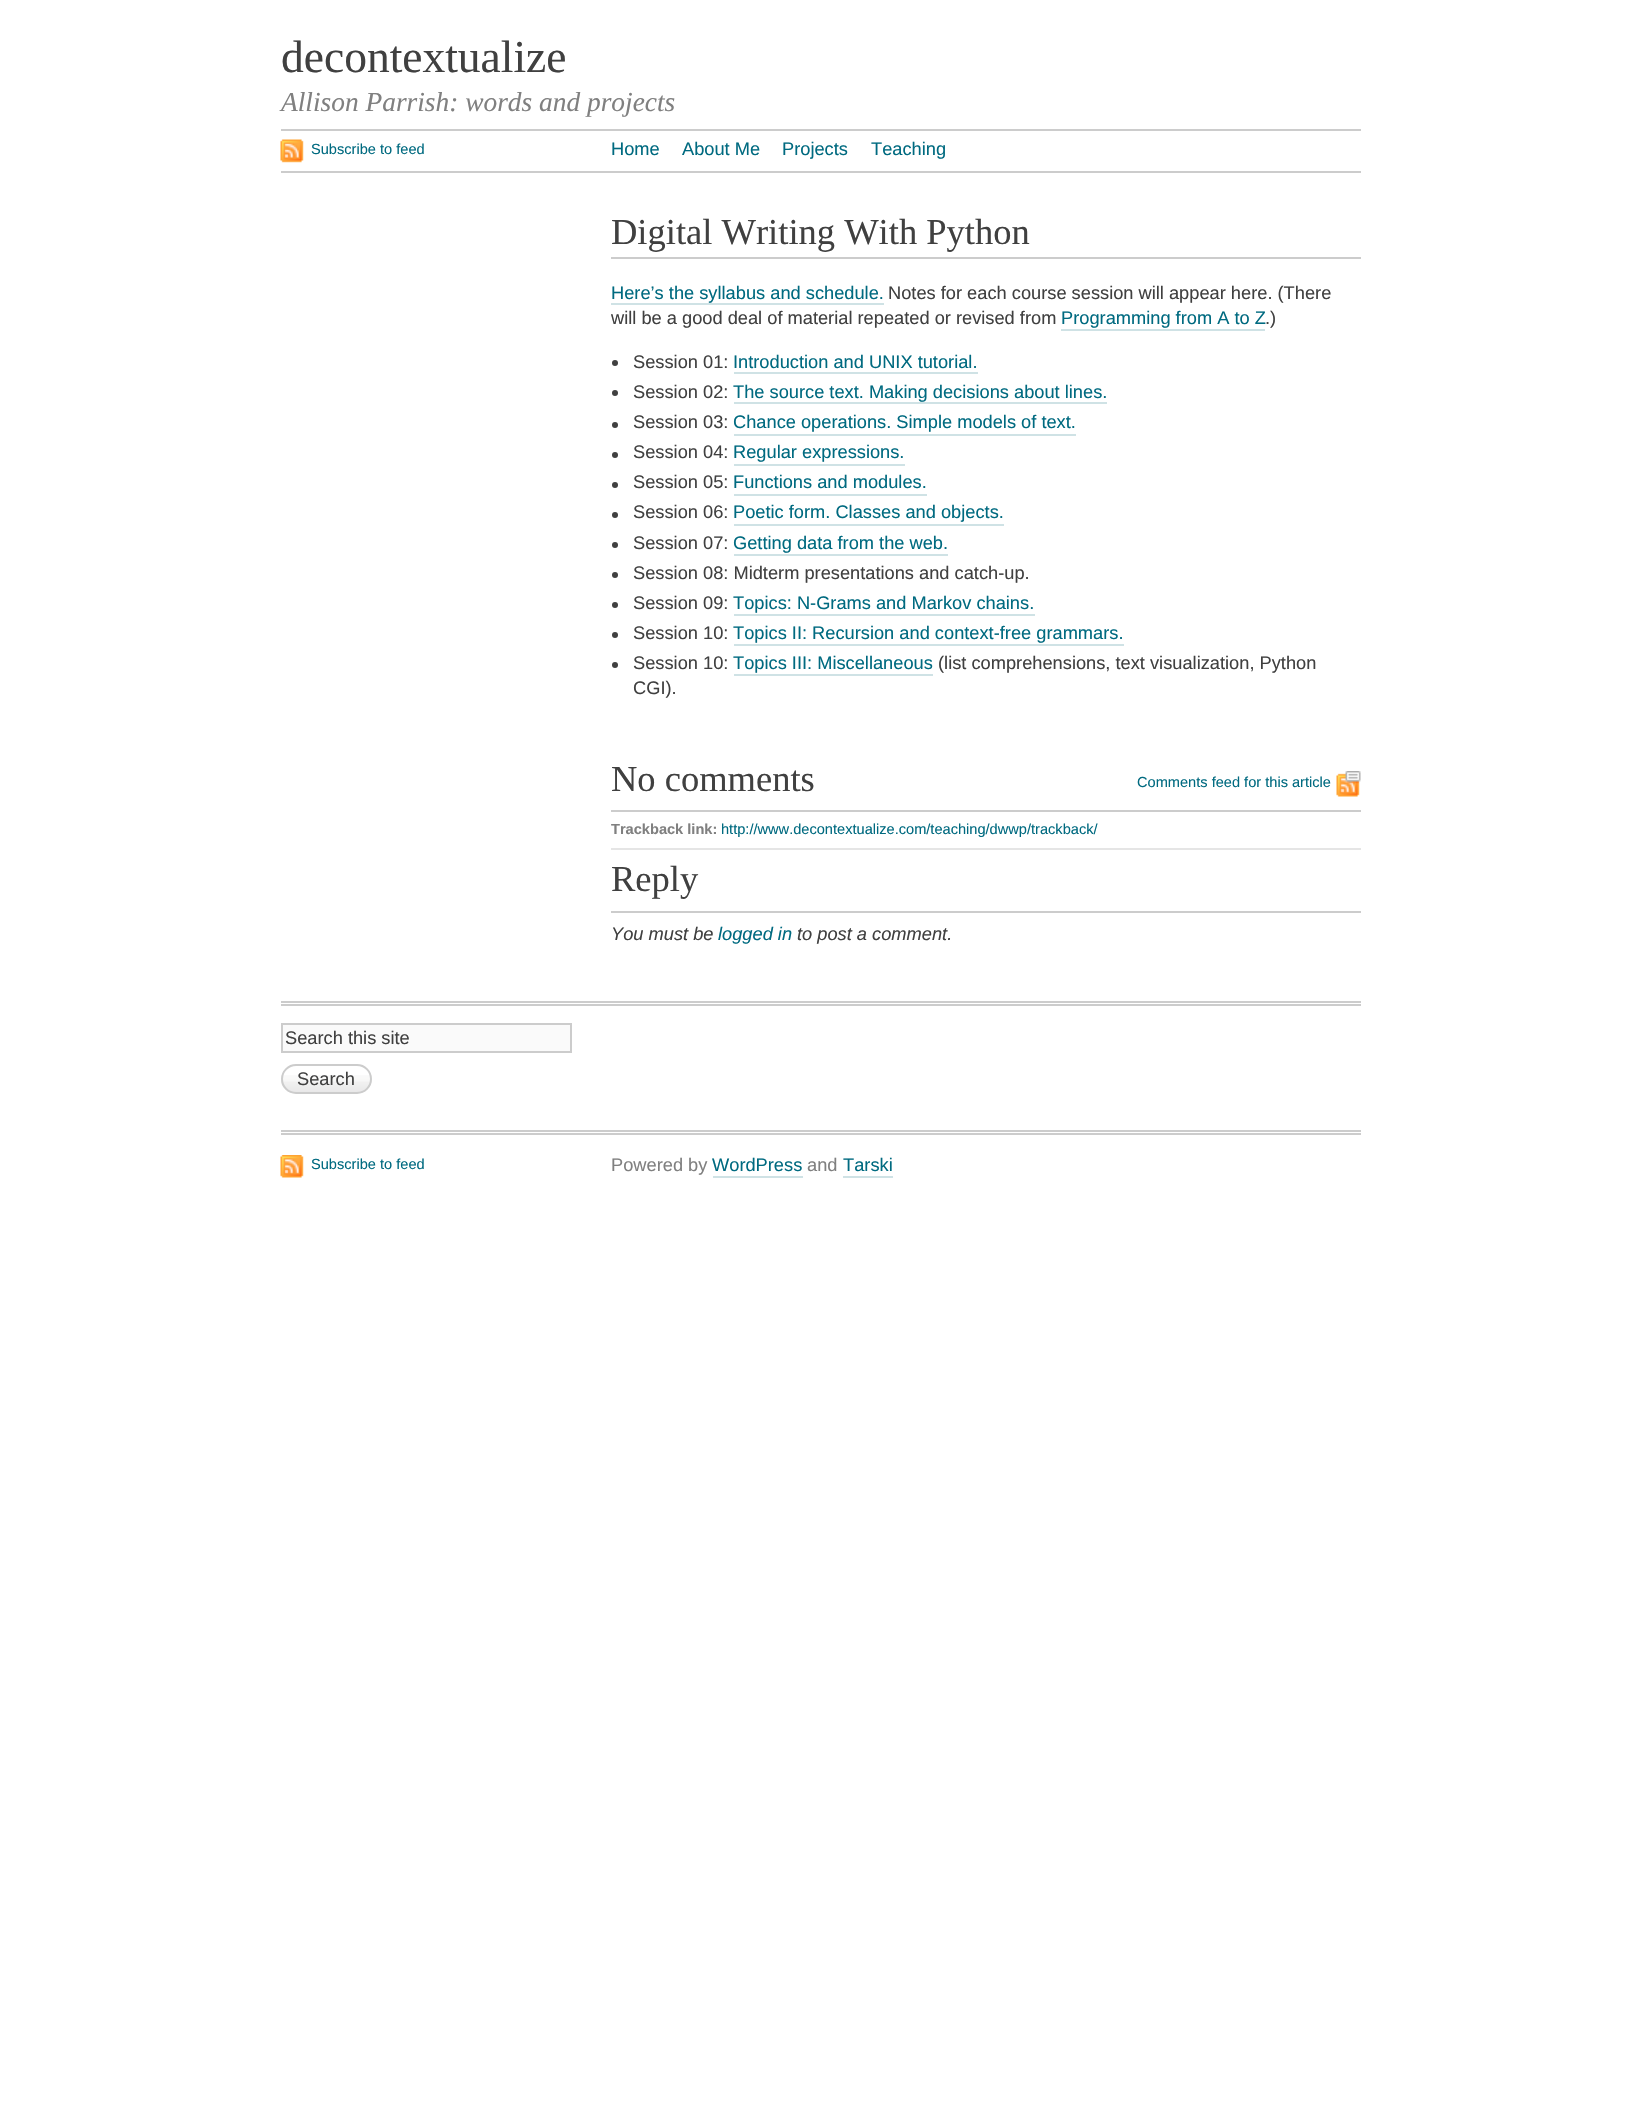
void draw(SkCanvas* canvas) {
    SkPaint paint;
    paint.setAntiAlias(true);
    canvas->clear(0xFFFFFFFF);
    paint.setColor(0xFFCCCCCC);
    canvas->drawRect(SkRect::MakeXYWH(281, 129, 1080, 2), paint);
    SkFont font1(fontMgr->matchFamilyStyle("Liberation Serif", SkFontStyle::Normal()), 45.5f);
    font1.setSubpixel(true);
    paint.setColor(0xFF404040);
    canvas->drawString("decontextualize", 281, 72, font1, paint);
    SkFont font2(fontMgr->matchFamilyStyle("Liberation Serif", SkFontStyle::Italic()), 27.4f);
    font2.setSubpixel(true);
    paint.setColor(0xFF808080);
    canvas->drawString("Allison Parrish: words and projects", 281, 111, font2, paint);
    paint.setColor(0xFFCCCCCC);
    canvas->drawRect(SkRect::MakeXYWH(281, 171, 1080, 2), paint);
    canvas->drawImageRect(SkImages::DeferredFromEncodedData(SkData::MakeFromFileName("img1.png")), SkRect::MakeXYWH(280, 139, 24, 24), SkSamplingOptions());
    SkFont font3(fontMgr->matchFamilyStyle("Liberation Sans", SkFontStyle::Normal()), 14.6f);
    font3.setSubpixel(true);
    paint.setColor(0xFF006A80);
    canvas->drawString("Subscribe to feed", 311, 154, font3, paint);
    SkFont font4(fontMgr->matchFamilyStyle("Liberation Sans", SkFontStyle::Normal()), 18.25f);
    font4.setSubpixel(true);
    canvas->drawString("Home", 611, 155, font4, paint);
    canvas->drawString("About Me", 682, 155, font4, paint);
    canvas->drawString("Projects", 782, 155, font4, paint);
    canvas->drawString("Teaching", 871, 155, font4, paint);
    paint.setColor(0xFFCCCCCC);
    canvas->drawRect(SkRect::MakeXYWH(611, 257, 750, 2), paint);
    SkFont font5(fontMgr->matchFamilyStyle("Liberation Serif", SkFontStyle::Normal()), 36.5f);
    font5.setSubpixel(true);
    paint.setColor(0xFF404040);
    canvas->drawString("Digital Writing With Python", 611, 244, font5, paint);
    paint.setColor(0xFF006A80);
    canvas->drawString("Here’s the syllabus and schedule.", 611, 299, font4, paint);
    paint.setColor(0xFFCFE2E5);
    canvas->drawRect(SkRect::MakeXYWH(611, 303, 273, 2), paint);
    paint.setColor(0xFF404040);
    canvas->drawString("Notes for each course session will appear here. (There", 888, 299, font4, paint);
    canvas->drawString("will be a good deal of material repeated or revised from", 611, 324, font4, paint);
    paint.setColor(0xFF006A80);
    canvas->drawString("Programming from A to Z", 1061, 324, font4, paint);
    paint.setColor(0xFFCFE2E5);
    canvas->drawRect(SkRect::MakeXYWH(1061, 329, 204, 2), paint);
    paint.setColor(0xFF404040);
    canvas->drawString(".)", 1265, 324, font4, paint);
    canvas->drawCircle(615, 363, 3, paint);
    canvas->drawString("Session 01:", 633, 368, font4, paint);
    paint.setColor(0xFF006A80);
    canvas->drawString("Introduction and UNIX tutorial.", 733, 368, font4, paint);
    paint.setColor(0xFFCFE2E5);
    canvas->drawRect(SkRect::MakeXYWH(734, 372, 244, 2), paint);
    paint.setColor(0xFF404040);
    canvas->drawCircle(615, 393, 3, paint);
    canvas->drawString("Session 02:", 633, 398, font4, paint);
    paint.setColor(0xFF006A80);
    canvas->drawString("The source text. Making decisions about lines.", 733, 398, font4, paint);
    paint.setColor(0xFFCFE2E5);
    canvas->drawRect(SkRect::MakeXYWH(734, 402, 373, 2), paint);
    paint.setColor(0xFF404040);
    canvas->drawCircle(615, 425, 3, paint);
    canvas->drawString("Session 03:", 633, 428, font4, paint);
    paint.setColor(0xFF006A80);
    canvas->drawString("Chance operations. Simple models of text.", 733, 428, font4, paint);
    paint.setColor(0xFFCFE2E5);
    canvas->drawRect(SkRect::MakeXYWH(734, 434, 342, 2), paint);
    paint.setColor(0xFF404040);
    canvas->drawCircle(615, 455, 3, paint);
    canvas->drawString("Session 04:", 633, 458, font4, paint);
    paint.setColor(0xFF006A80);
    canvas->drawString("Regular expressions.", 733, 458, font4, paint);
    paint.setColor(0xFFCFE2E5);
    canvas->drawRect(SkRect::MakeXYWH(734, 464, 171, 2), paint);
    paint.setColor(0xFF404040);
    canvas->drawCircle(615, 485, 3, paint);
    canvas->drawString("Session 05:", 633, 488, font4, paint);
    paint.setColor(0xFF006A80);
    canvas->drawString("Functions and modules.", 733, 488, font4, paint);
    paint.setColor(0xFFCFE2E5);
    canvas->drawRect(SkRect::MakeXYWH(734, 494, 193, 2), paint);
    paint.setColor(0xFF404040);
    canvas->drawCircle(615, 515, 3, paint);
    canvas->drawString("Session 06:", 633, 518, font4, paint);
    paint.setColor(0xFF006A80);
    canvas->drawString("Poetic form. Classes and objects.", 733, 518, font4, paint);
    paint.setColor(0xFFCFE2E5);
    canvas->drawRect(SkRect::MakeXYWH(734, 524, 270, 2), paint);
    paint.setColor(0xFF404040);
    canvas->drawCircle(615, 545, 3, paint);
    canvas->drawString("Session 07:", 633, 549, font4, paint);
    paint.setColor(0xFF006A80);
    canvas->drawString("Getting data from the web.", 733, 549, font4, paint);
    paint.setColor(0xFFCFE2E5);
    canvas->drawRect(SkRect::MakeXYWH(734, 554, 214, 2), paint);
    paint.setColor(0xFF404040);
    canvas->drawCircle(615, 575, 3, paint);
    canvas->drawString("Session 08: Midterm presentations and catch-up.", 633, 579, font4, paint);
    canvas->drawCircle(615, 605, 3, paint);
    canvas->drawString("Session 09:", 633, 609, font4, paint);
    paint.setColor(0xFF006A80);
    canvas->drawString("Topics: N-Grams and Markov chains.", 733, 609, font4, paint);
    paint.setColor(0xFFCFE2E5);
    canvas->drawRect(SkRect::MakeXYWH(734, 614, 301, 2), paint);
    paint.setColor(0xFF404040);
    canvas->drawCircle(615, 635, 3, paint);
    canvas->drawString("Session 10:", 633, 639, font4, paint);
    paint.setColor(0xFF006A80);
    canvas->drawString("Topics II: Recursion and context-free grammars.", 733, 639, font4, paint);
    paint.setColor(0xFFCFE2E5);
    canvas->drawRect(SkRect::MakeXYWH(734, 644, 390, 2), paint);
    paint.setColor(0xFF404040);
    canvas->drawCircle(615, 665, 3, paint);
    canvas->drawString("Session 10:", 633, 669, font4, paint);
    paint.setColor(0xFF006A80);
    canvas->drawString("Topics III: Miscellaneous", 733, 669, font4, paint);
    paint.setColor(0xFFCFE2E5);
    canvas->drawRect(SkRect::MakeXYWH(734, 674, 199, 2), paint);
    paint.setColor(0xFF404040);
    canvas->drawString("(list comprehensions, text visualization, Python", 938, 669, font4, paint);
    canvas->drawString("CGI).", 633, 694, font4, paint);
    canvas->drawString("No comments", 611, 791, font5, paint);
    canvas->drawImageRect(SkImages::DeferredFromEncodedData(SkData::MakeFromFileName("img2.png")), SkRect::MakeXYWH(1336, 771, 25, 26), SkSamplingOptions());
    paint.setColor(0xFF006A80);
    canvas->drawString("Comments feed for this article", 1137, 787, font3, paint);
    paint.setColor(0xFFCCCCCC);
    canvas->drawRect(SkRect::MakeXYWH(611, 810, 750, 2), paint);
    SkFont font6(fontMgr->matchFamilyStyle("Liberation Sans", SkFontStyle::Bold()), 14.6f);
    font6.setSubpixel(true);
    paint.setColor(0xFF808080);
    canvas->drawString("Trackback link:", 611, 834, font6, paint);
    paint.setColor(0xFF006A80);
    canvas->drawString("http://www.decontextualize.com/teaching/dwwp/trackback/", 721, 834, font3, paint);
    paint.setColor(0xFFE5E5E5);
    canvas->drawRect(SkRect::MakeXYWH(611, 848, 750, 2), paint);
    paint.setColor(0xFFCCCCCC);
    canvas->drawRect(SkRect::MakeXYWH(611, 911, 750, 2), paint);
    paint.setColor(0xFF404040);
    canvas->drawString("Reply", 611, 891, font5, paint);
    SkFont font7(fontMgr->matchFamilyStyle("Liberation Sans", SkFontStyle::Italic()), 18.25f);
    font7.setSubpixel(true);
    canvas->drawString("You must be", 611, 940, font7, paint);
    paint.setColor(0xFF006A80);
    canvas->drawString("logged in", 718, 940, font7, paint);
    paint.setColor(0xFF404040);
    canvas->drawString("to post a comment.", 797, 940, font7, paint);
    paint.setColor(0xFFCCCCCC);
    canvas->drawRect(SkRect::MakeXYWH(281, 1001, 1080, 2), paint);
    canvas->drawRect(SkRect::MakeXYWH(281, 1004, 1080, 2), paint);
    paint.setColor(0xFFFAFAFA);
    canvas->drawRect(SkRect::MakeXYWH(282, 1024, 289, 28), paint);
    paint.setStyle(SkPaint::kStroke_Style);
    paint.setStrokeWidth(2);
    paint.setColor(0xFFCCCCCC);
    canvas->drawRect(SkRect::MakeXYWH(282, 1024, 289, 28), paint);
    paint.setStyle(SkPaint::kFill_Style);
    paint.setColor(0xFF404040);
    canvas->drawString("Search this site", 285, 1044, font4, paint);
    canvas->drawImageRect(SkImages::DeferredFromEncodedData(SkData::MakeFromFileName("img3.png")), SkRect::MakeXYWH(281, 1075, 91, 19), SkSamplingOptions());
    paint.setStyle(SkPaint::kStroke_Style);
    paint.setColor(0xFFCCCCCC);
    canvas->drawRoundRect(SkRect::MakeXYWH(282, 1065, 89, 28), 14, 14, paint);
    paint.setStyle(SkPaint::kFill_Style);
    paint.setColor(0xFF404040);
    canvas->drawString("Search", 297, 1085, font4, paint);
    paint.setColor(0xFFCCCCCC);
    canvas->drawRect(SkRect::MakeXYWH(281, 1130, 1080, 2), paint);
    canvas->drawRect(SkRect::MakeXYWH(281, 1133, 1080, 2), paint);
    canvas->drawImageRect(SkImages::DeferredFromEncodedData(SkData::MakeFromFileName("img4.png")), SkRect::MakeXYWH(280, 1155, 24, 23), SkSamplingOptions());
    paint.setColor(0xFF006A80);
    canvas->drawString("Subscribe to feed", 311, 1169, font3, paint);
    paint.setColor(0xFF808080);
    canvas->drawString("Powered by", 611, 1171, font4, paint);
    paint.setColor(0xFF006A80);
    canvas->drawString("WordPress", 712, 1171, font4, paint);
    paint.setColor(0xFFCFE2E5);
    canvas->drawRect(SkRect::MakeXYWH(713, 1176, 90, 2), paint);
    paint.setColor(0xFF808080);
    canvas->drawString("and", 807, 1171, font4, paint);
    paint.setColor(0xFF006A80);
    canvas->drawString("Tarski", 843, 1171, font4, paint);
    paint.setColor(0xFFCFE2E5);
    canvas->drawRect(SkRect::MakeXYWH(843, 1176, 50, 2), paint);
}
